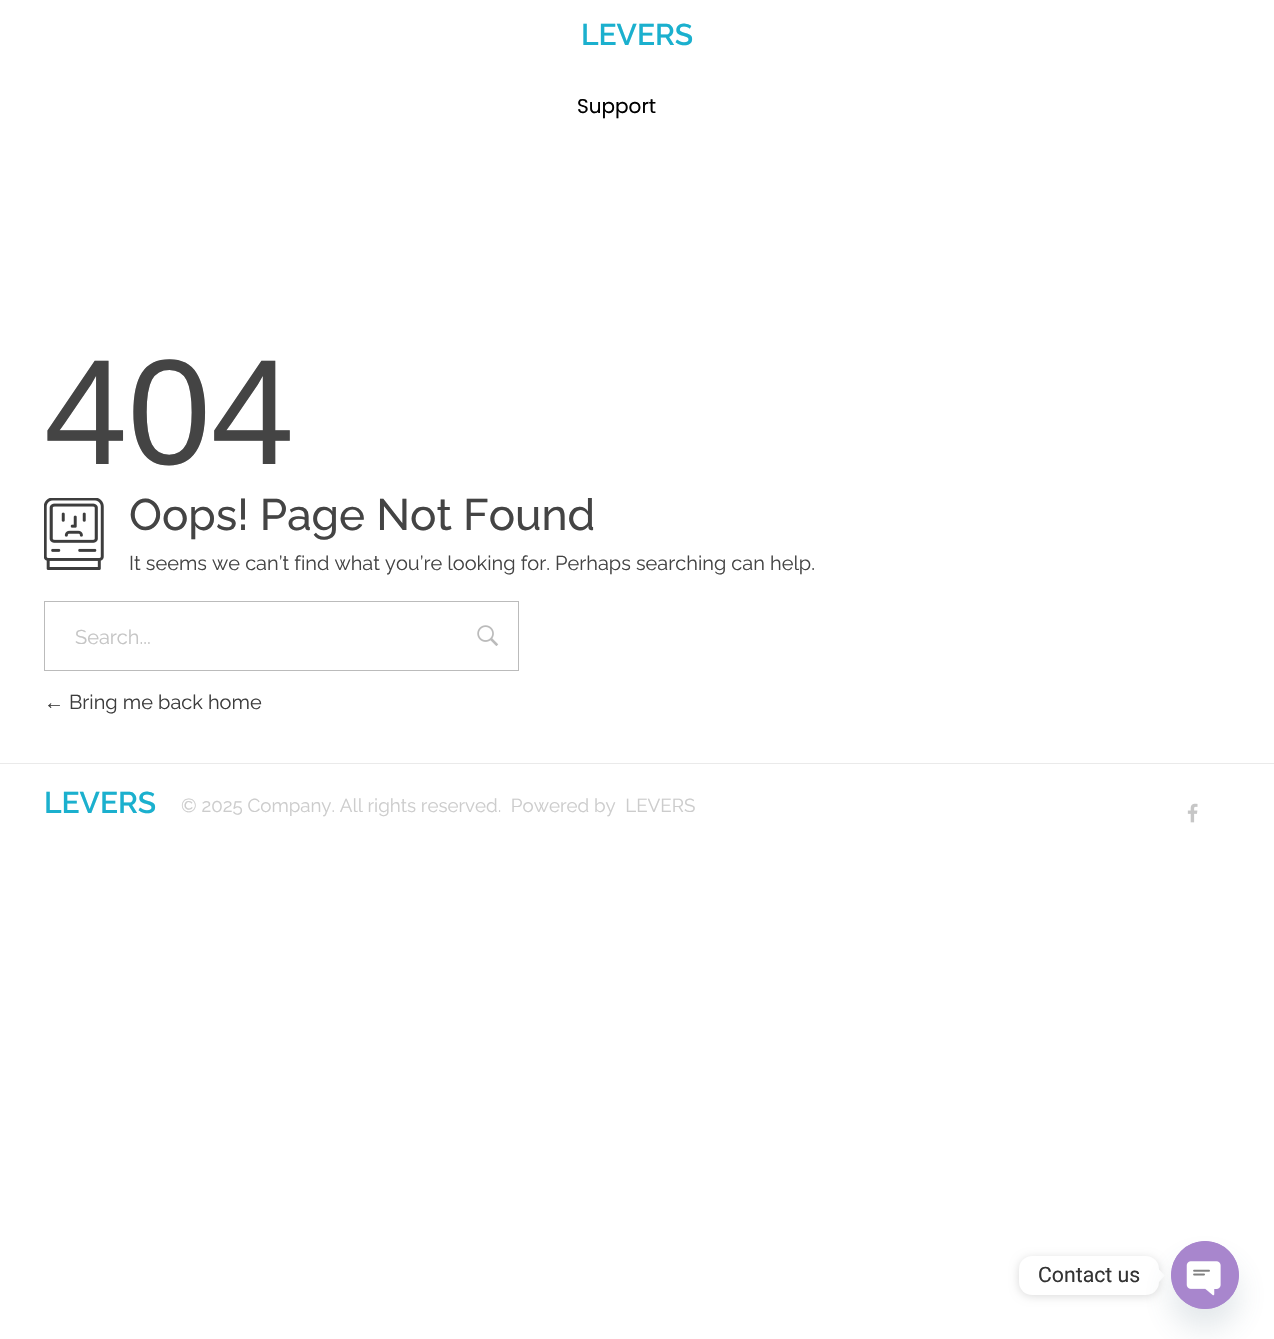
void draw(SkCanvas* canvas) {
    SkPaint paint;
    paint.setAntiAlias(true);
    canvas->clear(0xFFFFFFFF);
    SkFont font1(fontMgr->matchFamilyStyle("Raleway", SkFontStyle(600, SkFontStyle::kNormal_Width, SkFontStyle::kUpright_Slant)), 30);
    font1.setSubpixel(true);
    paint.setColor(0xFF1BB0CE);
    canvas->drawString("LEVERS", 581, 45, font1, paint);
    SkFont font2(fontMgr->matchFamilyStyle("Poppins", SkFontStyle::Normal()), 20);
    font2.setSubpixel(true);
    paint.setColor(0xFF000000);
    canvas->drawString("Support", 577, 113, font2, paint);
    SkFont font3(fontMgr->matchFamilyStyle("Liberation Sans", SkFontStyle::Normal()), 150);
    font3.setSubpixel(true);
    paint.setColor(0xFF444444);
    canvas->drawString("404", 44, 464, font3, paint);
    canvas->drawImageRect(SkImages::DeferredFromEncodedData(SkData::MakeFromFileName("img1.png")), SkRect::MakeXYWH(44, 498, 60, 72), SkSamplingOptions());
    SkFont font4(fontMgr->matchFamilyStyle("Raleway", SkFontStyle(500, SkFontStyle::kNormal_Width, SkFontStyle::kUpright_Slant)), 44);
    font4.setSubpixel(true);
    canvas->drawString("Oops! Page Not Found", 129, 530, font4, paint);
    SkFont font5(fontMgr->matchFamilyStyle("Raleway", SkFontStyle::Normal()), 20);
    font5.setSubpixel(true);
    canvas->drawString("It seems we can’t find what you’re looking for. Perhaps searching can help.", 129, 570, font5, paint);
    paint.setStyle(SkPaint::kStroke_Style);
    paint.setStrokeWidth(1);
    paint.setColor(0xFFBBBBBB);
    canvas->drawRect(SkRect::MakeXYWH(44.5f, 601.5f, 474, 69), paint);
    paint.setStyle(SkPaint::kFill_Style);
    paint.setColor(0xFFC5C5C5);
    canvas->drawString("Search...", 75, 644, font5, paint);
    canvas->drawImageRect(SkImages::DeferredFromEncodedData(SkData::MakeFromFileName("img2.png")), SkRect::MakeXYWH(477, 625, 22, 21), SkSamplingOptions());
    SkFont font6(fontMgr->matchFamilyStyle("Liberation Sans", SkFontStyle::Normal()), 20);
    font6.setSubpixel(true);
    paint.setColor(0xFF3D3D3D);
    canvas->drawString("←", 44, 709, font6, paint);
    canvas->drawString("Bring me back home", 69, 709, font5, paint);
    paint.setColor(0xFFEAEAEA);
    canvas->drawRect(SkRect::MakeXYWH(0, 763, 1274, 1), paint);
    paint.setColor(0xFF1BB0CE);
    canvas->drawString("LEVERS", 44, 813, font1, paint);
    SkFont font7(fontMgr->matchFamilyStyle("Raleway", SkFontStyle::Normal()), 18.75f);
    font7.setSubpixel(true);
    paint.setColor(0xFFCCCCCC);
    canvas->drawString("© 2025 Company. All rights reserved.  Powered by  LEVERS", 181, 812, font7, paint);
    canvas->drawImageRect(SkImages::DeferredFromEncodedData(SkData::MakeFromFileName("img3.png")), SkRect::MakeXYWH(1187, 803, 11, 20), SkSamplingOptions());
    paint.setColor(0x26000000);
    paint.setMaskFilter(SkMaskFilter::MakeBlur(kNormal_SkBlurStyle, 5));
    canvas->drawRoundRect(SkRect::MakeXYWH(1019, 1258, 140, 38), 13, 13, paint);
    paint.setMaskFilter(nullptr);
    paint.setColor(0xFFFFFFFF);
    canvas->drawRoundRect(SkRect::MakeXYWH(1019, 1256, 140, 39), 13, 13, paint);
    SkFont font8(fontMgr->matchFamilyStyle("Roboto", SkFontStyle::Normal()), 21.25f);
    font8.setSubpixel(true);
    paint.setColor(0xFF333333);
    canvas->drawString("Contact us", 1038, 1282, font8, paint);
    paint.setColor(0xFFFFFFFF);
    canvas->drawPath(SkPathBuilder().moveTo(1159, 1282).lineTo(1159, 1269.5f).lineTo(1165, 1275.5f).close().detach(), paint);
    paint.setColor(0x2949687E);
    paint.setMaskFilter(SkMaskFilter::MakeBlur(kNormal_SkBlurStyle, 15));
    canvas->drawRoundRect(SkRect::MakeXYWH(1171, 1261, 68, 68), 34, 34, paint);
    paint.setMaskFilter(nullptr);
    paint.setColor(0xFFA886CD);
    canvas->drawCircle(1205, 1275, 34, paint);
    canvas->drawImageRect(SkImages::DeferredFromEncodedData(SkData::MakeFromFileName("img4.png")), SkRect::MakeXYWH(1171, 1241, 68, 68), SkSamplingOptions());
}
